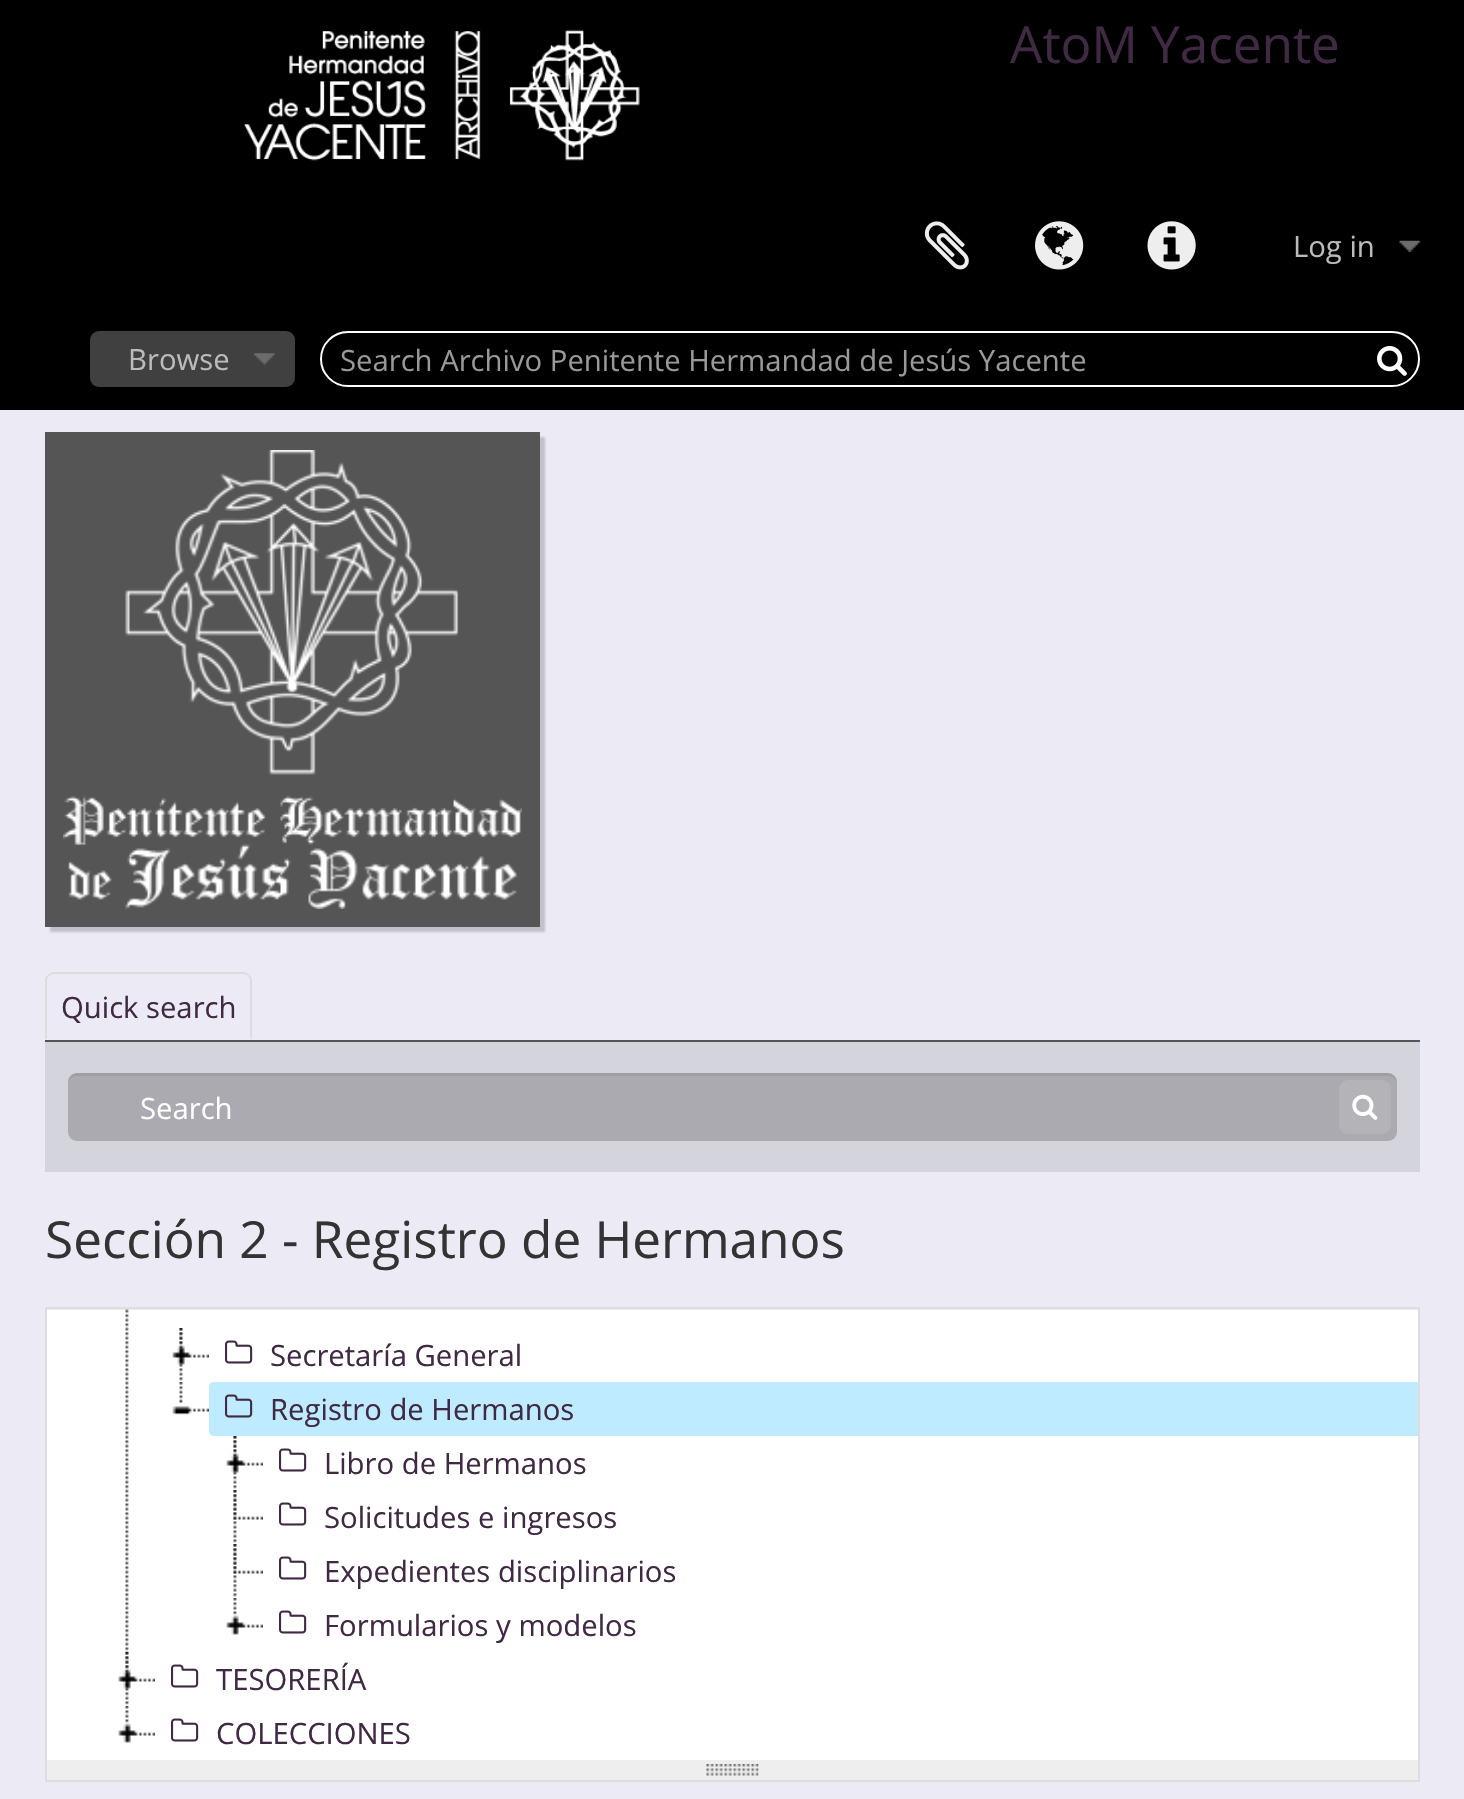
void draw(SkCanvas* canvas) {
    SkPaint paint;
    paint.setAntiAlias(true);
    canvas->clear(0xFFECEBF5);
    paint.setColor(0xFF000000);
    canvas->drawRect(SkRect::MakeXYWH(0, 0, 1464, 410), paint);
    canvas->drawImageRect(SkImages::DeferredFromEncodedData(SkData::MakeFromFileName("img1.png")), SkRect::MakeXYWH(243, 29, 397, 132), SkSamplingOptions());
    SkFont font1(fontMgr->matchFamilyStyle("Open Sans", SkFontStyle::Normal()), 51.25f);
    font1.setSubpixel(true);
    paint.setColor(0xFF402943);
    canvas->drawString("AtoM Yacente", 1010, 63, font1, paint);
    canvas->drawImageRect(SkImages::DeferredFromEncodedData(SkData::MakeFromFileName("img2.png")), SkRect::MakeXYWH(924, 221, 45, 49), SkSamplingOptions());
    canvas->drawImageRect(SkImages::DeferredFromEncodedData(SkData::MakeFromFileName("img3.png")), SkRect::MakeXYWH(1035, 221, 49, 49), SkSamplingOptions());
    canvas->drawImageRect(SkImages::DeferredFromEncodedData(SkData::MakeFromFileName("img4.png")), SkRect::MakeXYWH(1147, 221, 49, 49), SkSamplingOptions());
    canvas->drawImageRect(SkImages::DeferredFromEncodedData(SkData::MakeFromFileName("img5.png")), SkRect::MakeXYWH(1399, 240, 22, 12), SkSamplingOptions());
    SkFont font2(fontMgr->matchFamilyStyle("Open Sans", SkFontStyle::Normal()), 29.25f);
    font2.setSubpixel(true);
    paint.setColor(0xFFBBBBBB);
    canvas->drawString("Log in", 1293, 257, font2, paint);
    paint.setColor(0xFF404040);
    canvas->drawRoundRect(SkRect::MakeXYWH(90, 331, 205, 56), 9, 9, paint);
    canvas->drawImageRect(SkImages::DeferredFromEncodedData(SkData::MakeFromFileName("img6.png")), SkRect::MakeXYWH(254, 353, 21, 12), SkSamplingOptions());
    paint.setColor(0xFFBBBBBB);
    canvas->drawString("Browse", 128, 370, font2, paint);
    paint.setStyle(SkPaint::kStroke_Style);
    paint.setStrokeWidth(2);
    paint.setColor(0xFFFFFFFF);
    canvas->drawRoundRect(SkRect::MakeXYWH(321, 332, 1098, 54), 27, 27, paint);
    paint.setStyle(SkPaint::kFill_Style);
    paint.setColor(0xFF999999);
    canvas->drawString("Search Archivo Penitente Hermandad de Jesús Yacente", 340, 371, font2, paint);
    canvas->drawImageRect(SkImages::DeferredFromEncodedData(SkData::MakeFromFileName("img7.png")), SkRect::MakeXYWH(1377, 346, 30, 30), SkSamplingOptions());
    paint.setColor(0x33191919);
    paint.setMaskFilter(SkMaskFilter::MakeBlur(kNormal_SkBlurStyle, 1));
    canvas->drawRect(SkRect::MakeXYWH(50, 437, 495, 495), paint);
    paint.setMaskFilter(nullptr);
    paint.setColor(0xFF555555);
    canvas->drawRect(SkRect::MakeXYWH(45, 432, 495, 495), paint);
    canvas->drawImageRect(SkImages::DeferredFromEncodedData(SkData::MakeFromFileName("img8.png")), SkRect::MakeXYWH(63, 450, 459, 459), SkSamplingOptions());
    canvas->drawRect(SkRect::MakeXYWH(45, 1040, 1375, 2), paint);
    paint.setColor(0xFFDDDDDD);
    canvas->drawPath(SkPathBuilder().moveTo(54, 972).cubicTo(52, 972, 49, 973, 48, 975).lineTo(49, 976).cubicTo(50, 975, 52, 974, 54, 974).lineTo(243, 974).cubicTo(245, 974, 247, 975, 248, 976).lineTo(249, 975).cubicTo(248, 973, 246, 972, 243, 972).close().detach(), paint);
    canvas->drawPath(SkPathBuilder().moveTo(252, 1040).lineTo(252, 981).cubicTo(252, 978, 251, 976, 249, 975).lineTo(248, 976).cubicTo(249, 977, 250, 979, 250, 981).lineTo(250, 1037).close().detach(), paint);
    canvas->drawPath(SkPathBuilder().moveTo(45, 1040).lineTo(48, 1037).lineTo(47, 1037).lineTo(47, 981).cubicTo(47, 979, 48, 977, 49, 976).lineTo(48, 975).cubicTo(46, 976, 45, 978, 45, 981).close().detach(), paint);
    paint.setColor(0xFF402943);
    canvas->drawString("Quick search", 61, 1018, font2, paint);
    paint.setColor(0xFFD4D4DC);
    canvas->drawRect(SkRect::MakeXYWH(45, 1042, 1375, 130), paint);
    paint.setColor(0xFFAAAAB0);
    canvas->drawRoundRect(SkRect::MakeXYWH(68, 1073, 1329, 68), 9, 9, paint);
    paint.setColor(0x12000000);
    canvas->drawPath(SkPathBuilder().moveTo(76, 1076).lineTo(1388, 1076).cubicTo(1393, 1076, 1397, 1080, 1397, 1084).cubicTo(1397, 1078, 1394, 1073, 1388, 1073).lineTo(77, 1073).cubicTo(71, 1073, 68, 1078, 68, 1084).cubicTo(68, 1080, 72, 1076, 76, 1076).close().detach(), paint);
    paint.setColor(0xFFFFFFFF);
    canvas->drawString("Search", 140, 1119, font2, paint);
    paint.setColor(0xFFB3B3B8);
    canvas->drawRoundRect(SkRect::MakeXYWH(1339, 1080, 52, 54), 9, 9, paint);
    canvas->drawImageRect(SkImages::DeferredFromEncodedData(SkData::MakeFromFileName("img9.png")), SkRect::MakeXYWH(1352, 1094, 26, 26), SkSamplingOptions());
    paint.setColor(0xFF333333);
    canvas->drawString("Sección 2 - Registro de Hermanos", 45, 1258, font1, paint);
    paint.setStyle(SkPaint::kStroke_Style);
    paint.setColor(0xFFDDDDDD);
    canvas->drawRect(SkRect::MakeXYWH(46, 1308, 1373, 453), paint);
    paint.setStyle(SkPaint::kFill_Style);
    paint.setColor(0xFFEEEEEE);
    canvas->drawRect(SkRect::MakeXYWH(47, 1760, 1371, 20), paint);
    canvas->drawImageRect(SkImages::DeferredFromEncodedData(SkData::MakeFromFileName("img20.png")), SkRect::MakeXYWH(706, 1764, 53, 12), SkSamplingOptions());
    paint.setStyle(SkPaint::kStroke_Style);
    paint.setColor(0xFFDDDDDD);
    canvas->drawRect(SkRect::MakeXYWH(46, 1758, 1373, 23), paint);
    paint.setStyle(SkPaint::kFill_Style);
    paint.setColor(0xFFFFFFFF);
    canvas->drawRect(SkRect::MakeXYWH(47, 1310, 1371, 450), paint);
    canvas->drawImageRect(SkImages::DeferredFromEncodedData(SkData::MakeFromFileName("img10.png")), SkRect::MakeXYWH(125, 1309, 4, 343), SkSamplingOptions());
    canvas->drawImageRect(SkImages::DeferredFromEncodedData(SkData::MakeFromFileName("img11.png")), SkRect::MakeXYWH(179, 1328, 4, 53), SkSamplingOptions());
    canvas->drawImageRect(SkImages::DeferredFromEncodedData(SkData::MakeFromFileName("img12.png")), SkRect::MakeXYWH(172, 1328, 37, 37), SkSamplingOptions());
    canvas->drawImageRect(SkImages::DeferredFromEncodedData(SkData::MakeFromFileName("img13.png")), SkRect::MakeXYWH(225, 1340, 28, 24), SkSamplingOptions());
    paint.setColor(0xFF402943);
    canvas->drawString("Secretaría General", 270, 1366, font2, paint);
    canvas->drawImageRect(SkImages::DeferredFromEncodedData(SkData::MakeFromFileName("img14.png")), SkRect::MakeXYWH(172, 1382, 37, 33), SkSamplingOptions());
    paint.setColor(0xFFBEEBFF);
    canvas->drawPath(SkPathBuilder().moveTo(214, 1382).lineTo(1418, 1382).lineTo(1418, 1436).lineTo(214, 1436).cubicTo(211, 1436, 209, 1434, 209, 1431).lineTo(209, 1387).cubicTo(209, 1384, 211, 1382, 214, 1382).close().detach(), paint);
    canvas->drawImageRect(SkImages::DeferredFromEncodedData(SkData::MakeFromFileName("img15.png")), SkRect::MakeXYWH(225, 1394, 28, 24), SkSamplingOptions());
    paint.setColor(0xFF402943);
    canvas->drawString("Registro de Hermanos", 270, 1420, font2, paint);
    canvas->drawImageRect(SkImages::DeferredFromEncodedData(SkData::MakeFromFileName("img11.png")), SkRect::MakeXYWH(233, 1436, 4, 53), SkSamplingOptions());
    canvas->drawImageRect(SkImages::DeferredFromEncodedData(SkData::MakeFromFileName("img16.png")), SkRect::MakeXYWH(226, 1436, 37, 37), SkSamplingOptions());
    canvas->drawImageRect(SkImages::DeferredFromEncodedData(SkData::MakeFromFileName("img13.png")), SkRect::MakeXYWH(279, 1448, 28, 24), SkSamplingOptions());
    canvas->drawString("Libro de Hermanos", 324, 1474, font2, paint);
    canvas->drawImageRect(SkImages::DeferredFromEncodedData(SkData::MakeFromFileName("img11.png")), SkRect::MakeXYWH(233, 1490, 4, 53), SkSamplingOptions());
    canvas->drawImageRect(SkImages::DeferredFromEncodedData(SkData::MakeFromFileName("img17.png")), SkRect::MakeXYWH(233, 1490, 30, 30), SkSamplingOptions());
    canvas->drawImageRect(SkImages::DeferredFromEncodedData(SkData::MakeFromFileName("img13.png")), SkRect::MakeXYWH(279, 1502, 28, 24), SkSamplingOptions());
    canvas->drawString("Solicitudes e ingresos", 324, 1528, font2, paint);
    canvas->drawImageRect(SkImages::DeferredFromEncodedData(SkData::MakeFromFileName("img11.png")), SkRect::MakeXYWH(233, 1544, 4, 53), SkSamplingOptions());
    canvas->drawImageRect(SkImages::DeferredFromEncodedData(SkData::MakeFromFileName("img17.png")), SkRect::MakeXYWH(233, 1544, 30, 30), SkSamplingOptions());
    canvas->drawImageRect(SkImages::DeferredFromEncodedData(SkData::MakeFromFileName("img13.png")), SkRect::MakeXYWH(279, 1556, 28, 24), SkSamplingOptions());
    canvas->drawString("Expedientes disciplinarios", 324, 1582, font2, paint);
    canvas->drawImageRect(SkImages::DeferredFromEncodedData(SkData::MakeFromFileName("img18.png")), SkRect::MakeXYWH(226, 1598, 37, 37), SkSamplingOptions());
    canvas->drawImageRect(SkImages::DeferredFromEncodedData(SkData::MakeFromFileName("img13.png")), SkRect::MakeXYWH(279, 1610, 28, 24), SkSamplingOptions());
    canvas->drawString("Formularios y modelos", 324, 1636, font2, paint);
    canvas->drawImageRect(SkImages::DeferredFromEncodedData(SkData::MakeFromFileName("img11.png")), SkRect::MakeXYWH(125, 1652, 4, 53), SkSamplingOptions());
    canvas->drawImageRect(SkImages::DeferredFromEncodedData(SkData::MakeFromFileName("img12.png")), SkRect::MakeXYWH(118, 1652, 37, 37), SkSamplingOptions());
    canvas->drawImageRect(SkImages::DeferredFromEncodedData(SkData::MakeFromFileName("img13.png")), SkRect::MakeXYWH(171, 1664, 28, 24), SkSamplingOptions());
    canvas->drawString("TESORERÍA", 216, 1690, font2, paint);
    canvas->drawImageRect(SkImages::DeferredFromEncodedData(SkData::MakeFromFileName("img19.png")), SkRect::MakeXYWH(118, 1706, 37, 37), SkSamplingOptions());
    canvas->drawImageRect(SkImages::DeferredFromEncodedData(SkData::MakeFromFileName("img13.png")), SkRect::MakeXYWH(171, 1718, 28, 24), SkSamplingOptions());
    canvas->drawString("COLECCIONES", 216, 1744, font2, paint);
}
